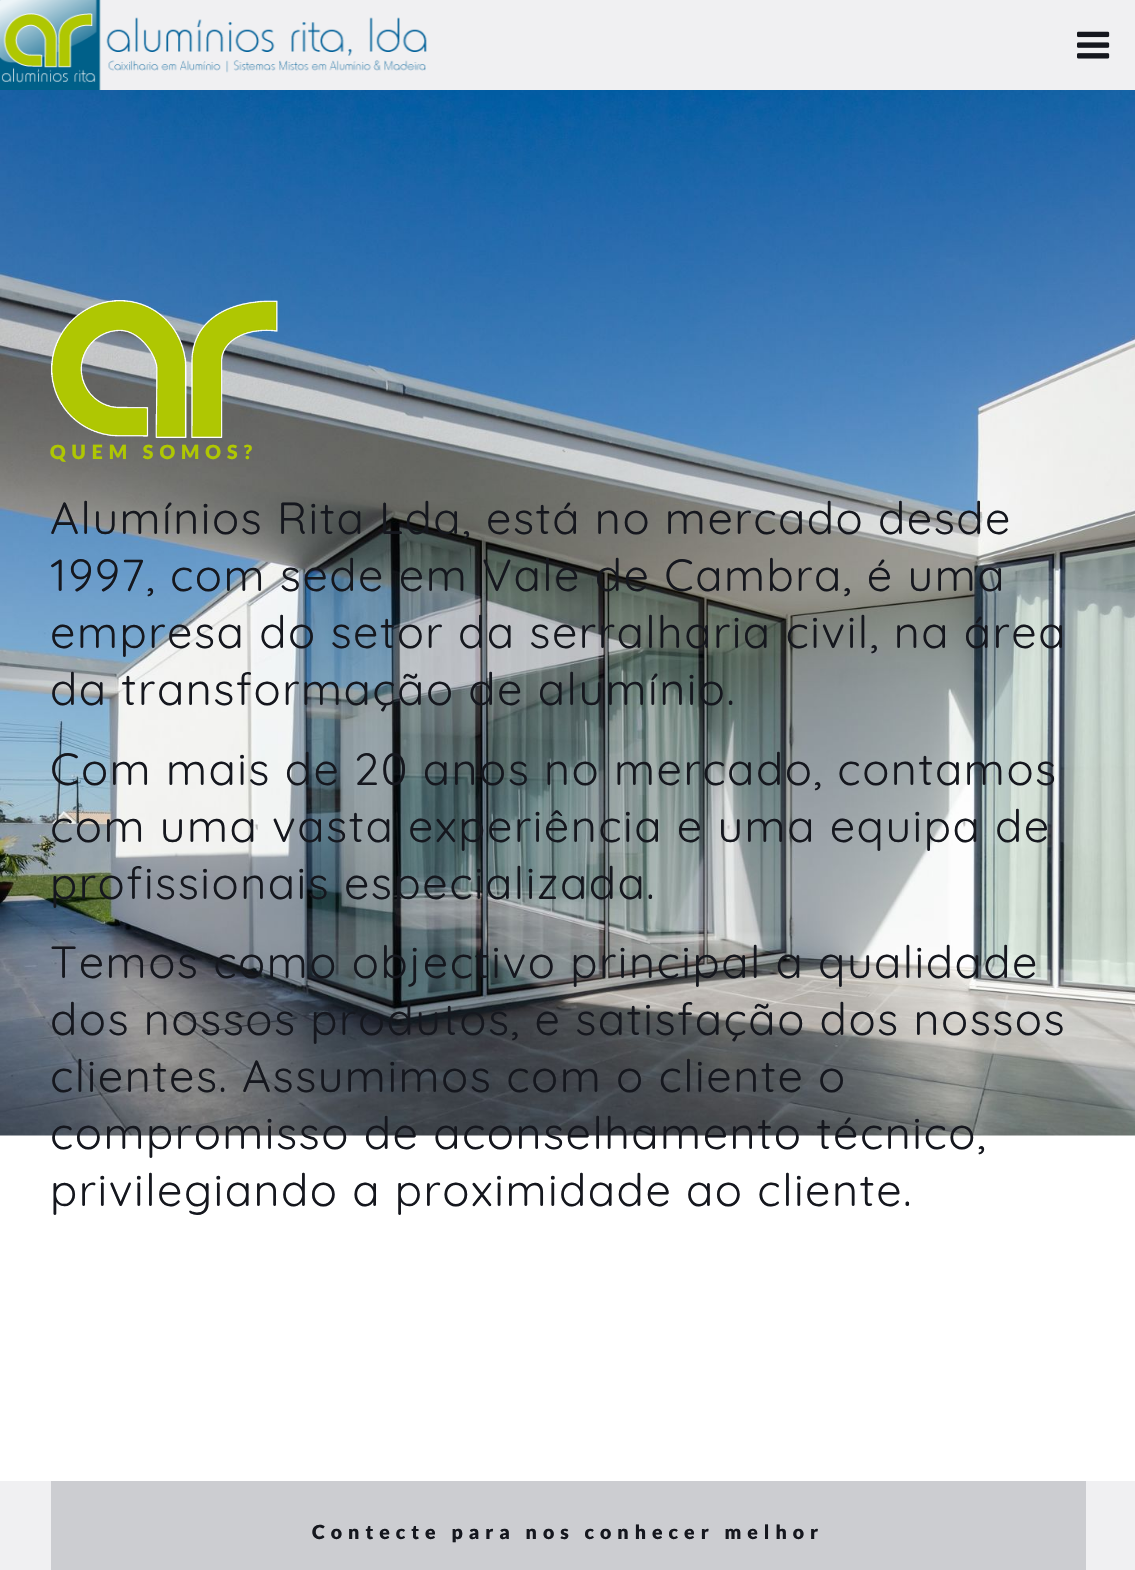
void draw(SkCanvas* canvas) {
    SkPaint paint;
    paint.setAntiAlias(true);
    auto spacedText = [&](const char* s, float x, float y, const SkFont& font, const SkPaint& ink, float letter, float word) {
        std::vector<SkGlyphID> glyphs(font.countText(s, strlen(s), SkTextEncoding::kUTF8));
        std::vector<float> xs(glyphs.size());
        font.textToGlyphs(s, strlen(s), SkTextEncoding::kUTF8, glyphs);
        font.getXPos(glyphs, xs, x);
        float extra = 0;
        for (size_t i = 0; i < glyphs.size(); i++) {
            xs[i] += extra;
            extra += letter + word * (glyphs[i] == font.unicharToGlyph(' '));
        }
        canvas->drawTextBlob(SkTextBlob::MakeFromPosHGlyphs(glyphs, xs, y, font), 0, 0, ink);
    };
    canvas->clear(0xFFF0F0F2);
    canvas->drawImageRect(SkImages::DeferredFromEncodedData(SkData::MakeFromFileName("img1.png")), SkRect::MakeXYWH(0, 0, 427, 90), SkSamplingOptions());
    canvas->drawImageRect(SkImages::DeferredFromEncodedData(SkData::MakeFromFileName("img2.png")), SkRect::MakeXYWH(1077, 31, 33, 28), SkSamplingOptions());
    paint.setColor(0xFFFFFFFF);
    canvas->drawRect(SkRect::MakeXYWH(0, 1135, 1135, 346), paint);
    canvas->drawImageRect(SkImages::DeferredFromEncodedData(SkData::MakeFromFileName("img3.png")), SkRect::MakeXYWH(0, 90, 1135, 1046), SkSamplingOptions());
    canvas->drawImageRect(SkImages::DeferredFromEncodedData(SkData::MakeFromFileName("img4.png")), SkRect::MakeXYWH(51, 300, 227, 138), SkSamplingOptions());
    SkFont font1(fontMgr->matchFamilyStyle("Lato", SkFontStyle(900, SkFontStyle::kNormal_Width, SkFontStyle::kUpright_Slant)), 19.5f);
    font1.setSubpixel(true);
    paint.setColor(0xFFAFC702);
    spacedText("QUEM SOMOS?", 50, 459, font1, paint, 6, 0);
    SkFont font2(fontMgr->matchFamilyStyle("Quicksand", SkFontStyle::Normal()), 45);
    font2.setSubpixel(true);
    paint.setColor(0xFF15171E);
    spacedText("Alumínios Rita Lda, está no mercado desde", 50, 534, font2, paint, 1.5f, 0);
    spacedText("1997, com sede em Vale de Cambra, é uma", 50, 591, font2, paint, 1.5f, 0);
    spacedText("empresa do setor da serralharia civil, na área", 50, 648, font2, paint, 1.5f, 0);
    spacedText("da transformação de alumínio.", 50, 705, font2, paint, 1.5f, 0);
    spacedText("Com mais de 20 anos no mercado, contamos", 50, 785, font2, paint, 1.5f, 0);
    spacedText("com uma vasta experiência e uma equipa de", 50, 842, font2, paint, 1.5f, 0);
    spacedText("profissionais especializada.", 50, 899, font2, paint, 1.5f, 0);
    spacedText("Temos como objectivo principal a qualidade", 50, 978, font2, paint, 1.5f, 0);
    spacedText("dos nossos produtos, e satisfação dos nossos", 50, 1035, font2, paint, 1.5f, 0);
    spacedText("clientes. Assumimos com o cliente o", 50, 1092, font2, paint, 1.5f, 0);
    spacedText("compromisso de aconselhamento técnico,", 50, 1149, font2, paint, 1.5f, 0);
    spacedText("privilegiando a proximidade ao cliente.", 50, 1206, font2, paint, 1.5f, 0);
    paint.setColor(0xFFCCCDD1);
    canvas->drawRect(SkRect::MakeXYWH(51, 1481, 1035, 89), paint);
    paint.setColor(0xFF15171E);
    spacedText("Contecte para nos conhecer melhor", 312, 1539, font1, paint, 6, 0);
}
